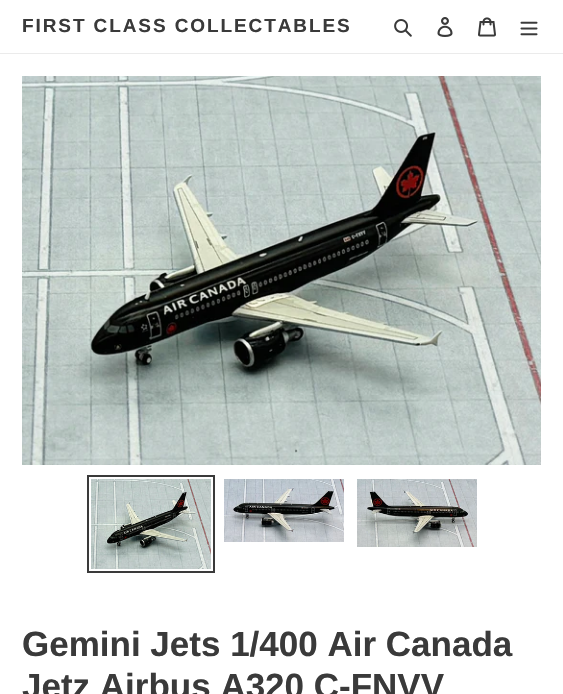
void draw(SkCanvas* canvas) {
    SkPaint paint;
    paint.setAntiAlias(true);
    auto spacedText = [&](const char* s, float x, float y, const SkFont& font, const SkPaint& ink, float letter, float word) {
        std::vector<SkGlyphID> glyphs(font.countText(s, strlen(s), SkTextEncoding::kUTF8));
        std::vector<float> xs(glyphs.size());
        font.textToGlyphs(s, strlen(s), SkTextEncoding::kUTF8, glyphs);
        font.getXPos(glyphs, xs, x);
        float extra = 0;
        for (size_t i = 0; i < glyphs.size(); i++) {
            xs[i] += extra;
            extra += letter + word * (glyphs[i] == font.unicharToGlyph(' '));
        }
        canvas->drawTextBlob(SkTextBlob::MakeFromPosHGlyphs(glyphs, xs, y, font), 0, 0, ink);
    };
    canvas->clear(0xFFFFFFFF);
    paint.setColor(0xFFEBEBEB);
    canvas->drawRect(SkRect::MakeXYWH(0, 53, 563, 1), paint);
    SkFont font1(fontMgr->matchFamilyStyle("Liberation Sans", SkFontStyle::Bold()), 19);
    font1.setSubpixel(true);
    paint.setColor(0xFF3A3A3A);
    spacedText("FIRST CLASS COLLECTABLES", 22, 32, font1, paint, 1.9f, 0);
    canvas->drawImageRect(SkImages::DeferredFromEncodedData(SkData::MakeFromFileName("img1.png")), SkRect::MakeXYWH(394, 19, 18, 18), SkSamplingOptions());
    canvas->drawImageRect(SkImages::DeferredFromEncodedData(SkData::MakeFromFileName("img2.png")), SkRect::MakeXYWH(437, 17, 16, 20), SkSamplingOptions());
    canvas->drawImageRect(SkImages::DeferredFromEncodedData(SkData::MakeFromFileName("img3.png")), SkRect::MakeXYWH(478, 17, 18, 20), SkSamplingOptions());
    canvas->drawImageRect(SkImages::DeferredFromEncodedData(SkData::MakeFromFileName("img4.png")), SkRect::MakeXYWH(520, 21, 18, 15), SkSamplingOptions());
    canvas->drawImageRect(SkImages::DeferredFromEncodedData(SkData::MakeFromFileName("img5.png")), SkRect::MakeXYWH(22, 76, 519, 389), SkSamplingOptions());
    paint.setStyle(SkPaint::kStroke_Style);
    paint.setStrokeWidth(2);
    canvas->drawRect(SkRect::MakeXYWH(88, 476, 126, 96), paint);
    canvas->drawImageRect(SkImages::DeferredFromEncodedData(SkData::MakeFromFileName("img6.png")), SkRect::MakeXYWH(91, 479, 120, 90), SkSamplingOptions());
    canvas->drawImageRect(SkImages::DeferredFromEncodedData(SkData::MakeFromFileName("img7.png")), SkRect::MakeXYWH(224, 479, 120, 63), SkSamplingOptions());
    canvas->drawImageRect(SkImages::DeferredFromEncodedData(SkData::MakeFromFileName("img8.png")), SkRect::MakeXYWH(357, 479, 120, 68), SkSamplingOptions());
    SkFont font2(fontMgr->matchFamilyStyle("Liberation Sans", SkFontStyle::Bold()), 35);
    font2.setSubpixel(true);
    paint.setStyle(SkPaint::kFill_Style);
    canvas->drawString("Gemini Jets 1/400 Air Canada", 22, 656, font2, paint);
    canvas->drawString("Jetz Airbus A320 C-FNVV", 22, 698, font2, paint);
}
